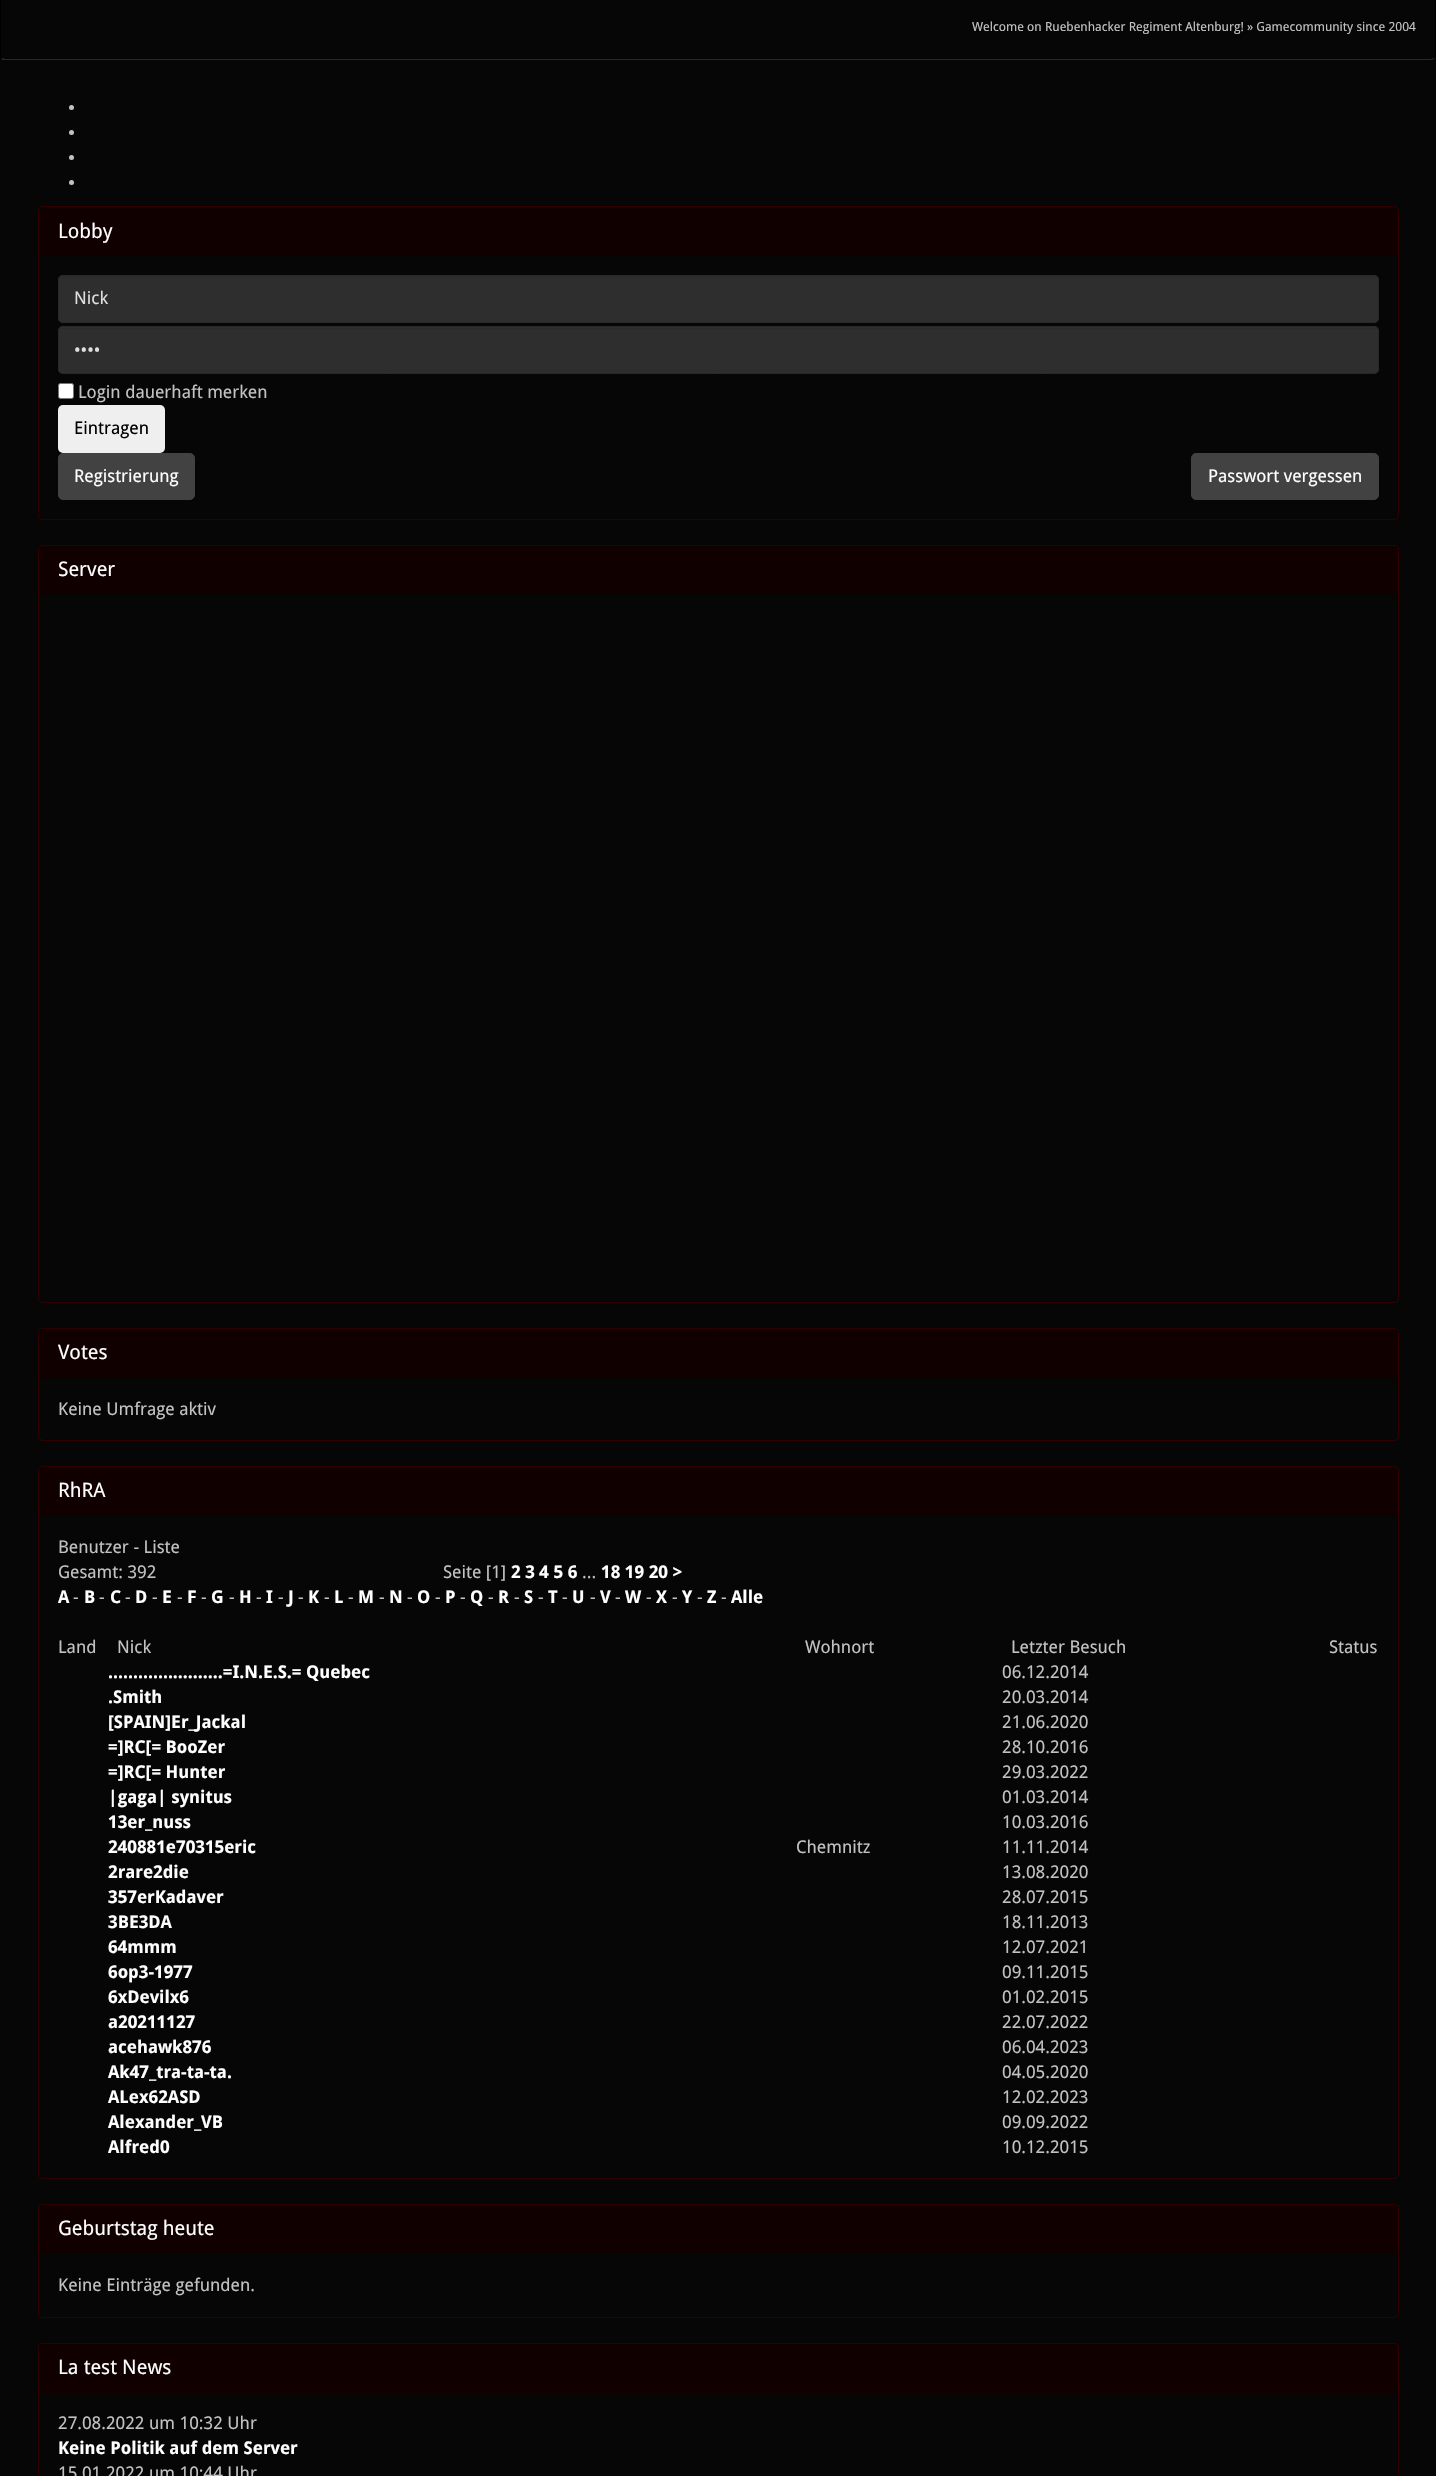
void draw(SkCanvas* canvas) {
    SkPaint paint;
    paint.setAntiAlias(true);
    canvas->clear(0xFF060606);
    paint.setColor(0xFF000000);
    canvas->drawPath(SkPathBuilder().moveTo(1436, -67).lineTo(1436, 56).lineTo(1435, 58).lineTo(1434, 58).lineTo(1435, 55).lineTo(1435, -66).close().detach(), paint);
    paint.setColor(0xFF282828);
    canvas->drawPath(SkPathBuilder().moveTo(5, 60).lineTo(1431, 60).cubicTo(1433, 60, 1434, 59, 1435, 58).lineTo(1434, 58).lineTo(1431, 59).lineTo(5, 59).lineTo(2, 58).lineTo(1, 59).cubicTo(2, 60, 4, 60, 5, 60).close().detach(), paint);
    paint.setColor(0xFF000000);
    canvas->drawPath(SkPathBuilder().moveTo(1, -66).lineTo(2, -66).lineTo(0, -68).lineTo(0, 56).lineTo(1, 59).lineTo(2, 58).lineTo(1, 55).close().detach(), paint);
    SkFont font1(fontMgr->matchFamilyStyle("Droid Sans", SkFontStyle::Normal()), 12.5f);
    font1.setSubpixel(true);
    paint.setColor(0xFFC2C2C2);
    canvas->drawString("Welcome on Ruebenhacker Regiment Altenburg! » Gamecommunity since 2004", 972, 31, font1, paint);
    canvas->drawCircle(71.5f, 107.5f, 2.5f, paint);
    canvas->drawCircle(71.5f, 132.5f, 2.5f, paint);
    canvas->drawCircle(71.5f, 157.5f, 2.5f, paint);
    canvas->drawCircle(71.5f, 182.5f, 2.5f, paint);
    paint.setStyle(SkPaint::kStroke_Style);
    paint.setStrokeWidth(1);
    paint.setColor(0xFF300000);
    canvas->drawRoundRect(SkRect::MakeXYWH(38.5f, 206.5f, 1360, 313), 4.5f, 4.5f, paint);
    paint.setStyle(SkPaint::kFill_Style);
    paint.setColor(0xFF100000);
    canvas->drawPath(SkPathBuilder().moveTo(43, 208).lineTo(1394, 208).cubicTo(1396, 208, 1398, 210, 1398, 212).lineTo(1398, 256).lineTo(39, 256).lineTo(39, 212).cubicTo(39, 210, 41, 208, 43, 208).close().detach(), paint);
    SkFont font2(fontMgr->matchFamilyStyle("Droid Sans", SkFontStyle::Normal()), 20);
    font2.setSubpixel(true);
    paint.setColor(0xFFFFFFFF);
    canvas->drawString("Lobby", 58, 238, font2, paint);
    paint.setColor(0xFF2E2E2E);
    canvas->drawRoundRect(SkRect::MakeXYWH(58, 275, 1321, 48), 5, 5, paint);
    paint.setColor(0xFF2B2B2B);
    canvas->drawPath(SkPathBuilder().moveTo(62, 278).lineTo(1374, 278).cubicTo(1376, 278, 1378, 279, 1378, 281).lineTo(1378, 280).cubicTo(1378, 278, 1376, 276, 1374, 276).lineTo(63, 276).cubicTo(61, 276, 59, 278, 59, 280).lineTo(59, 281).cubicTo(59, 279, 60, 278, 62, 278).close().detach(), paint);
    paint.setStyle(SkPaint::kStroke_Style);
    paint.setColor(0xFF282828);
    canvas->drawRoundRect(SkRect::MakeXYWH(58.5f, 275.5f, 1320, 47), 4.5f, 4.5f, paint);
    SkFont font3(fontMgr->matchFamilyStyle("Droid Sans", SkFontStyle::Normal()), 17.5f);
    font3.setSubpixel(true);
    paint.setStyle(SkPaint::kFill_Style);
    paint.setColor(0xFFDEDEDE);
    canvas->drawString("Nick", 74, 304, font3, paint);
    paint.setColor(0xFF2E2E2E);
    canvas->drawRoundRect(SkRect::MakeXYWH(58, 326, 1321, 48), 5, 5, paint);
    paint.setColor(0xFF2B2B2B);
    canvas->drawPath(SkPathBuilder().moveTo(62, 329).lineTo(1374, 329).cubicTo(1376, 329, 1378, 330, 1378, 332).cubicTo(1378, 330, 1376, 328, 1374, 328).lineTo(63, 328).cubicTo(62, 328, 60, 329, 60, 330).close().detach(), paint);
    paint.setStyle(SkPaint::kStroke_Style);
    paint.setColor(0xFF282828);
    canvas->drawRoundRect(SkRect::MakeXYWH(58.5f, 326.5f, 1320, 47), 4.5f, 4.5f, paint);
    paint.setStyle(SkPaint::kFill_Style);
    paint.setColor(0xFFDEDEDE);
    canvas->drawString("••••", 74, 356, font3, paint);
    paint.setColor(0xFFFFFFFF);
    canvas->drawRoundRect(SkRect::MakeXYWH(58.5f, 383.5f, 15, 15), 2, 2, paint);
    paint.setStyle(SkPaint::kStroke_Style);
    paint.setColor(0xFF767676);
    canvas->drawRoundRect(SkRect::MakeXYWH(58.5f, 383.5f, 15, 15), 2, 2, paint);
    paint.setStyle(SkPaint::kFill_Style);
    paint.setColor(0xFFC2C2C2);
    canvas->drawString("Login dauerhaft merken", 78, 398, font3, paint);
    paint.setColor(0xFFEFEFEF);
    canvas->drawRoundRect(SkRect::MakeXYWH(58, 405, 107, 48), 5, 5, paint);
    paint.setColor(0xFF000000);
    canvas->drawString("Eintragen", 74, 434, font3, paint);
    paint.setColor(0xFF424242);
    canvas->drawRoundRect(SkRect::MakeXYWH(58.5f, 453.5f, 136, 46), 4.5f, 4.5f, paint);
    paint.setStyle(SkPaint::kStroke_Style);
    canvas->drawRoundRect(SkRect::MakeXYWH(58.5f, 453.5f, 136, 46), 4.5f, 4.5f, paint);
    paint.setStyle(SkPaint::kFill_Style);
    paint.setColor(0xFFFFFFFF);
    canvas->drawString("Registrierung", 74, 482, font3, paint);
    paint.setColor(0xFF424242);
    canvas->drawRoundRect(SkRect::MakeXYWH(1191.5f, 453.5f, 187, 46), 4.5f, 4.5f, paint);
    paint.setStyle(SkPaint::kStroke_Style);
    canvas->drawRoundRect(SkRect::MakeXYWH(1191.5f, 453.5f, 187, 46), 4.5f, 4.5f, paint);
    paint.setStyle(SkPaint::kFill_Style);
    paint.setColor(0xFFFFFFFF);
    canvas->drawString("Passwort vergessen", 1208, 482, font3, paint);
    paint.setStyle(SkPaint::kStroke_Style);
    paint.setColor(0xFF300000);
    canvas->drawRoundRect(SkRect::MakeXYWH(38.5f, 545.5f, 1360, 757), 4.5f, 4.5f, paint);
    paint.setStyle(SkPaint::kFill_Style);
    paint.setColor(0xFF100000);
    canvas->drawPath(SkPathBuilder().moveTo(43, 546).lineTo(1394, 546).cubicTo(1396, 546, 1398, 548, 1398, 550).lineTo(1398, 594).lineTo(39, 594).lineTo(39, 550).cubicTo(39, 548, 41, 546, 43, 546).close().detach(), paint);
    paint.setColor(0xFFFFFFFF);
    canvas->drawString("Server", 58, 576, font2, paint);
    paint.setStyle(SkPaint::kStroke_Style);
    paint.setColor(0xFF300000);
    canvas->drawRoundRect(SkRect::MakeXYWH(38.5f, 1328.5f, 1360, 112), 4.5f, 4.5f, paint);
    paint.setStyle(SkPaint::kFill_Style);
    paint.setColor(0xFF100000);
    canvas->drawPath(SkPathBuilder().moveTo(43, 1329).lineTo(1394, 1329).cubicTo(1396, 1329, 1398, 1331, 1398, 1333).lineTo(1398, 1378).lineTo(39, 1378).lineTo(39, 1333).cubicTo(39, 1331, 41, 1329, 43, 1329).close().detach(), paint);
    paint.setColor(0xFFFFFFFF);
    canvas->drawString("Votes", 58, 1359, font2, paint);
    paint.setColor(0xFFC2C2C2);
    canvas->drawString("Keine Umfrage aktiv", 58, 1415, font3, paint);
    paint.setStyle(SkPaint::kStroke_Style);
    paint.setColor(0xFF300000);
    canvas->drawRoundRect(SkRect::MakeXYWH(38.5f, 1466.5f, 1360, 712), 4.5f, 4.5f, paint);
    paint.setStyle(SkPaint::kFill_Style);
    paint.setColor(0xFF100000);
    canvas->drawPath(SkPathBuilder().moveTo(43, 1468).lineTo(1394, 1468).cubicTo(1396, 1468, 1398, 1470, 1398, 1472).lineTo(1398, 1515).lineTo(39, 1515).lineTo(39, 1472).cubicTo(39, 1470, 41, 1468, 43, 1468).close().detach(), paint);
    paint.setColor(0xFFFFFFFF);
    canvas->drawString("RhRA", 58, 1497, font2, paint);
    paint.setColor(0xFFC2C2C2);
    canvas->drawString("Benutzer - Liste", 58, 1553, font3, paint);
    canvas->drawString("Gesamt: 392", 58, 1578, font3, paint);
    canvas->drawString("Seite [1]", 443, 1578, font3, paint);
    SkFont font4(fontMgr->matchFamilyStyle("Droid Sans", SkFontStyle::Bold()), 17.5f);
    font4.setSubpixel(true);
    paint.setColor(0xFFFFFFFF);
    canvas->drawString("2 3 4 5 6", 511, 1578, font4, paint);
    paint.setColor(0xFFC2C2C2);
    canvas->drawString("...", 582, 1578, font3, paint);
    paint.setColor(0xFFFFFFFF);
    canvas->drawString("18 19 20 >", 601, 1578, font4, paint);
    canvas->drawString("A", 58, 1603, font4, paint);
    paint.setColor(0xFFC2C2C2);
    canvas->drawString("-", 73, 1603, font3, paint);
    paint.setColor(0xFFFFFFFF);
    canvas->drawString("B", 84, 1603, font4, paint);
    paint.setColor(0xFFC2C2C2);
    canvas->drawString("-", 99, 1603, font3, paint);
    paint.setColor(0xFFFFFFFF);
    canvas->drawString("C", 110, 1603, font4, paint);
    paint.setColor(0xFFC2C2C2);
    canvas->drawString("-", 125, 1603, font3, paint);
    paint.setColor(0xFFFFFFFF);
    canvas->drawString("D", 135, 1603, font4, paint);
    paint.setColor(0xFFC2C2C2);
    canvas->drawString("-", 152, 1603, font3, paint);
    paint.setColor(0xFFFFFFFF);
    canvas->drawString("E", 162, 1603, font4, paint);
    paint.setColor(0xFFC2C2C2);
    canvas->drawString("-", 177, 1603, font3, paint);
    paint.setColor(0xFFFFFFFF);
    canvas->drawString("F", 187, 1603, font4, paint);
    paint.setColor(0xFFC2C2C2);
    canvas->drawString("-", 201, 1603, font3, paint);
    paint.setColor(0xFFFFFFFF);
    canvas->drawString("G", 211, 1603, font4, paint);
    paint.setColor(0xFFC2C2C2);
    canvas->drawString("-", 229, 1603, font3, paint);
    paint.setColor(0xFFFFFFFF);
    canvas->drawString("H", 239, 1603, font4, paint);
    paint.setColor(0xFFC2C2C2);
    canvas->drawString("-", 256, 1603, font3, paint);
    paint.setColor(0xFFFFFFFF);
    canvas->drawString("I", 266, 1603, font4, paint);
    paint.setColor(0xFFC2C2C2);
    canvas->drawString("-", 278, 1603, font3, paint);
    paint.setColor(0xFFFFFFFF);
    canvas->drawString("J", 288, 1603, font4, paint);
    paint.setColor(0xFFC2C2C2);
    canvas->drawString("-", 298, 1603, font3, paint);
    paint.setColor(0xFFFFFFFF);
    canvas->drawString("K", 308, 1603, font4, paint);
    paint.setColor(0xFFC2C2C2);
    canvas->drawString("-", 324, 1603, font3, paint);
    paint.setColor(0xFFFFFFFF);
    canvas->drawString("L", 334, 1603, font4, paint);
    paint.setColor(0xFFC2C2C2);
    canvas->drawString("-", 348, 1603, font3, paint);
    paint.setColor(0xFFFFFFFF);
    canvas->drawString("M", 358, 1603, font4, paint);
    paint.setColor(0xFFC2C2C2);
    canvas->drawString("-", 379, 1603, font3, paint);
    paint.setColor(0xFFFFFFFF);
    canvas->drawString("N", 389, 1603, font4, paint);
    paint.setColor(0xFFC2C2C2);
    canvas->drawString("-", 407, 1603, font3, paint);
    paint.setColor(0xFFFFFFFF);
    canvas->drawString("O", 417, 1603, font4, paint);
    paint.setColor(0xFFC2C2C2);
    canvas->drawString("-", 435, 1603, font3, paint);
    paint.setColor(0xFFFFFFFF);
    canvas->drawString("P", 445, 1603, font4, paint);
    paint.setColor(0xFFC2C2C2);
    canvas->drawString("-", 460, 1603, font3, paint);
    paint.setColor(0xFFFFFFFF);
    canvas->drawString("Q", 470, 1603, font4, paint);
    paint.setColor(0xFFC2C2C2);
    canvas->drawString("-", 488, 1603, font3, paint);
    paint.setColor(0xFFFFFFFF);
    canvas->drawString("R", 498, 1603, font4, paint);
    paint.setColor(0xFFC2C2C2);
    canvas->drawString("-", 514, 1603, font3, paint);
    paint.setColor(0xFFFFFFFF);
    canvas->drawString("S", 524, 1603, font4, paint);
    paint.setColor(0xFFC2C2C2);
    canvas->drawString("-", 538, 1603, font3, paint);
    paint.setColor(0xFFFFFFFF);
    canvas->drawString("T", 548, 1603, font4, paint);
    paint.setColor(0xFFC2C2C2);
    canvas->drawString("-", 562, 1603, font3, paint);
    paint.setColor(0xFFFFFFFF);
    canvas->drawString("U", 572, 1603, font4, paint);
    paint.setColor(0xFFC2C2C2);
    canvas->drawString("-", 590, 1603, font3, paint);
    paint.setColor(0xFFFFFFFF);
    canvas->drawString("V", 600, 1603, font4, paint);
    paint.setColor(0xFFC2C2C2);
    canvas->drawString("-", 615, 1603, font3, paint);
    paint.setColor(0xFFFFFFFF);
    canvas->drawString("W", 625, 1603, font4, paint);
    paint.setColor(0xFFC2C2C2);
    canvas->drawString("-", 646, 1603, font3, paint);
    paint.setColor(0xFFFFFFFF);
    canvas->drawString("X", 656, 1603, font4, paint);
    paint.setColor(0xFFC2C2C2);
    canvas->drawString("-", 672, 1603, font3, paint);
    paint.setColor(0xFFFFFFFF);
    canvas->drawString("Y", 682, 1603, font4, paint);
    paint.setColor(0xFFC2C2C2);
    canvas->drawString("-", 697, 1603, font3, paint);
    paint.setColor(0xFFFFFFFF);
    canvas->drawString("Z", 707, 1603, font4, paint);
    paint.setColor(0xFFC2C2C2);
    canvas->drawString("-", 721, 1603, font3, paint);
    paint.setColor(0xFFFFFFFF);
    canvas->drawString("Alle", 731, 1603, font4, paint);
    paint.setColor(0xFFC2C2C2);
    canvas->drawString("Land", 58, 1653, font3, paint);
    canvas->drawString("Nick", 117, 1653, font3, paint);
    canvas->drawString("Wohnort", 805, 1653, font3, paint);
    canvas->drawString("Letzter Besuch", 1011, 1653, font3, paint);
    canvas->drawString("Status", 1329, 1653, font3, paint);
    paint.setColor(0xFFFFFFFF);
    canvas->drawString(".......................=I.N.E.S.= Quebec", 108, 1678, font4, paint);
    paint.setColor(0xFFC2C2C2);
    canvas->drawString("06.12.2014", 1002, 1678, font3, paint);
    paint.setColor(0xFFFFFFFF);
    canvas->drawString(".Smith", 108, 1703, font4, paint);
    paint.setColor(0xFFC2C2C2);
    canvas->drawString("20.03.2014", 1002, 1703, font3, paint);
    paint.setColor(0xFFFFFFFF);
    canvas->drawString("[SPAIN]Er_Jackal", 108, 1728, font4, paint);
    paint.setColor(0xFFC2C2C2);
    canvas->drawString("21.06.2020", 1002, 1728, font3, paint);
    paint.setColor(0xFFFFFFFF);
    canvas->drawString("=]RC[= BooZer", 108, 1753, font4, paint);
    paint.setColor(0xFFC2C2C2);
    canvas->drawString("28.10.2016", 1002, 1753, font3, paint);
    paint.setColor(0xFFFFFFFF);
    canvas->drawString("=]RC[= Hunter", 108, 1778, font4, paint);
    paint.setColor(0xFFC2C2C2);
    canvas->drawString("29.03.2022", 1002, 1778, font3, paint);
    paint.setColor(0xFFFFFFFF);
    canvas->drawString("|gaga| synitus", 108, 1803, font4, paint);
    paint.setColor(0xFFC2C2C2);
    canvas->drawString("01.03.2014", 1002, 1803, font3, paint);
    paint.setColor(0xFFFFFFFF);
    canvas->drawString("13er_nuss", 108, 1828, font4, paint);
    paint.setColor(0xFFC2C2C2);
    canvas->drawString("10.03.2016", 1002, 1828, font3, paint);
    paint.setColor(0xFFFFFFFF);
    canvas->drawString("240881e70315eric", 108, 1853, font4, paint);
    paint.setColor(0xFFC2C2C2);
    canvas->drawString("Chemnitz", 796, 1853, font3, paint);
    canvas->drawString("11.11.2014", 1002, 1853, font3, paint);
    paint.setColor(0xFFFFFFFF);
    canvas->drawString("2rare2die", 108, 1878, font4, paint);
    paint.setColor(0xFFC2C2C2);
    canvas->drawString("13.08.2020", 1002, 1878, font3, paint);
    paint.setColor(0xFFFFFFFF);
    canvas->drawString("357erKadaver", 108, 1903, font4, paint);
    paint.setColor(0xFFC2C2C2);
    canvas->drawString("28.07.2015", 1002, 1903, font3, paint);
    paint.setColor(0xFFFFFFFF);
    canvas->drawString("3BE3DA", 108, 1928, font4, paint);
    paint.setColor(0xFFC2C2C2);
    canvas->drawString("18.11.2013", 1002, 1928, font3, paint);
    paint.setColor(0xFFFFFFFF);
    canvas->drawString("64mmm", 108, 1953, font4, paint);
    paint.setColor(0xFFC2C2C2);
    canvas->drawString("12.07.2021", 1002, 1953, font3, paint);
    paint.setColor(0xFFFFFFFF);
    canvas->drawString("6op3-1977", 108, 1978, font4, paint);
    paint.setColor(0xFFC2C2C2);
    canvas->drawString("09.11.2015", 1002, 1978, font3, paint);
    paint.setColor(0xFFFFFFFF);
    canvas->drawString("6xDevilx6", 108, 2003, font4, paint);
    paint.setColor(0xFFC2C2C2);
    canvas->drawString("01.02.2015", 1002, 2003, font3, paint);
    paint.setColor(0xFFFFFFFF);
    canvas->drawString("a20211127", 108, 2028, font4, paint);
    paint.setColor(0xFFC2C2C2);
    canvas->drawString("22.07.2022", 1002, 2028, font3, paint);
    paint.setColor(0xFFFFFFFF);
    canvas->drawString("acehawk876", 108, 2053, font4, paint);
    paint.setColor(0xFFC2C2C2);
    canvas->drawString("06.04.2023", 1002, 2053, font3, paint);
    paint.setColor(0xFFFFFFFF);
    canvas->drawString("Ak47_tra-ta-ta.", 108, 2078, font4, paint);
    paint.setColor(0xFFC2C2C2);
    canvas->drawString("04.05.2020", 1002, 2078, font3, paint);
    paint.setColor(0xFFFFFFFF);
    canvas->drawString("ALex62ASD", 108, 2103, font4, paint);
    paint.setColor(0xFFC2C2C2);
    canvas->drawString("12.02.2023", 1002, 2103, font3, paint);
    paint.setColor(0xFFFFFFFF);
    canvas->drawString("Alexander_VB", 108, 2128, font4, paint);
    paint.setColor(0xFFC2C2C2);
    canvas->drawString("09.09.2022", 1002, 2128, font3, paint);
    paint.setColor(0xFFFFFFFF);
    canvas->drawString("Alfred0", 108, 2153, font4, paint);
    paint.setColor(0xFFC2C2C2);
    canvas->drawString("10.12.2015", 1002, 2153, font3, paint);
    paint.setStyle(SkPaint::kStroke_Style);
    paint.setColor(0xFF300000);
    canvas->drawRoundRect(SkRect::MakeXYWH(38.5f, 2204.5f, 1360, 113), 4.5f, 4.5f, paint);
    paint.setStyle(SkPaint::kFill_Style);
    paint.setColor(0xFF100000);
    canvas->drawPath(SkPathBuilder().moveTo(43, 2205).lineTo(1394, 2205).cubicTo(1396, 2205, 1398, 2207, 1398, 2209).lineTo(1398, 2254).lineTo(39, 2254).lineTo(39, 2209).cubicTo(39, 2207, 41, 2205, 43, 2205).close().detach(), paint);
    paint.setColor(0xFFFFFFFF);
    canvas->drawString("Geburtstag heute", 58, 2235, font2, paint);
    paint.setColor(0xFFC2C2C2);
    canvas->drawString("Keine Einträge gefunden.", 58, 2291, font3, paint);
    paint.setStyle(SkPaint::kStroke_Style);
    paint.setColor(0xFF300000);
    canvas->drawRoundRect(SkRect::MakeXYWH(38.5f, 2343.5f, 1360, 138), 4.5f, 4.5f, paint);
    paint.setStyle(SkPaint::kFill_Style);
    paint.setColor(0xFF100000);
    canvas->drawPath(SkPathBuilder().moveTo(43, 2344).lineTo(1394, 2344).cubicTo(1396, 2344, 1398, 2346, 1398, 2348).lineTo(1398, 2393).lineTo(39, 2393).lineTo(39, 2348).cubicTo(39, 2346, 41, 2344, 43, 2344).close().detach(), paint);
    paint.setColor(0xFFFFFFFF);
    canvas->drawString("La test News", 58, 2374, font2, paint);
    paint.setColor(0xFFC2C2C2);
    canvas->drawString("27.08.2022 um 10:32 Uhr", 58, 2429, font3, paint);
    paint.setColor(0xFFFFFFFF);
    canvas->drawString("Keine Politik auf dem Server", 58, 2454, font4, paint);
    paint.setColor(0xFFC2C2C2);
    canvas->drawString("15.01.2022 um 10:44 Uhr", 58, 2479, font3, paint);
}
